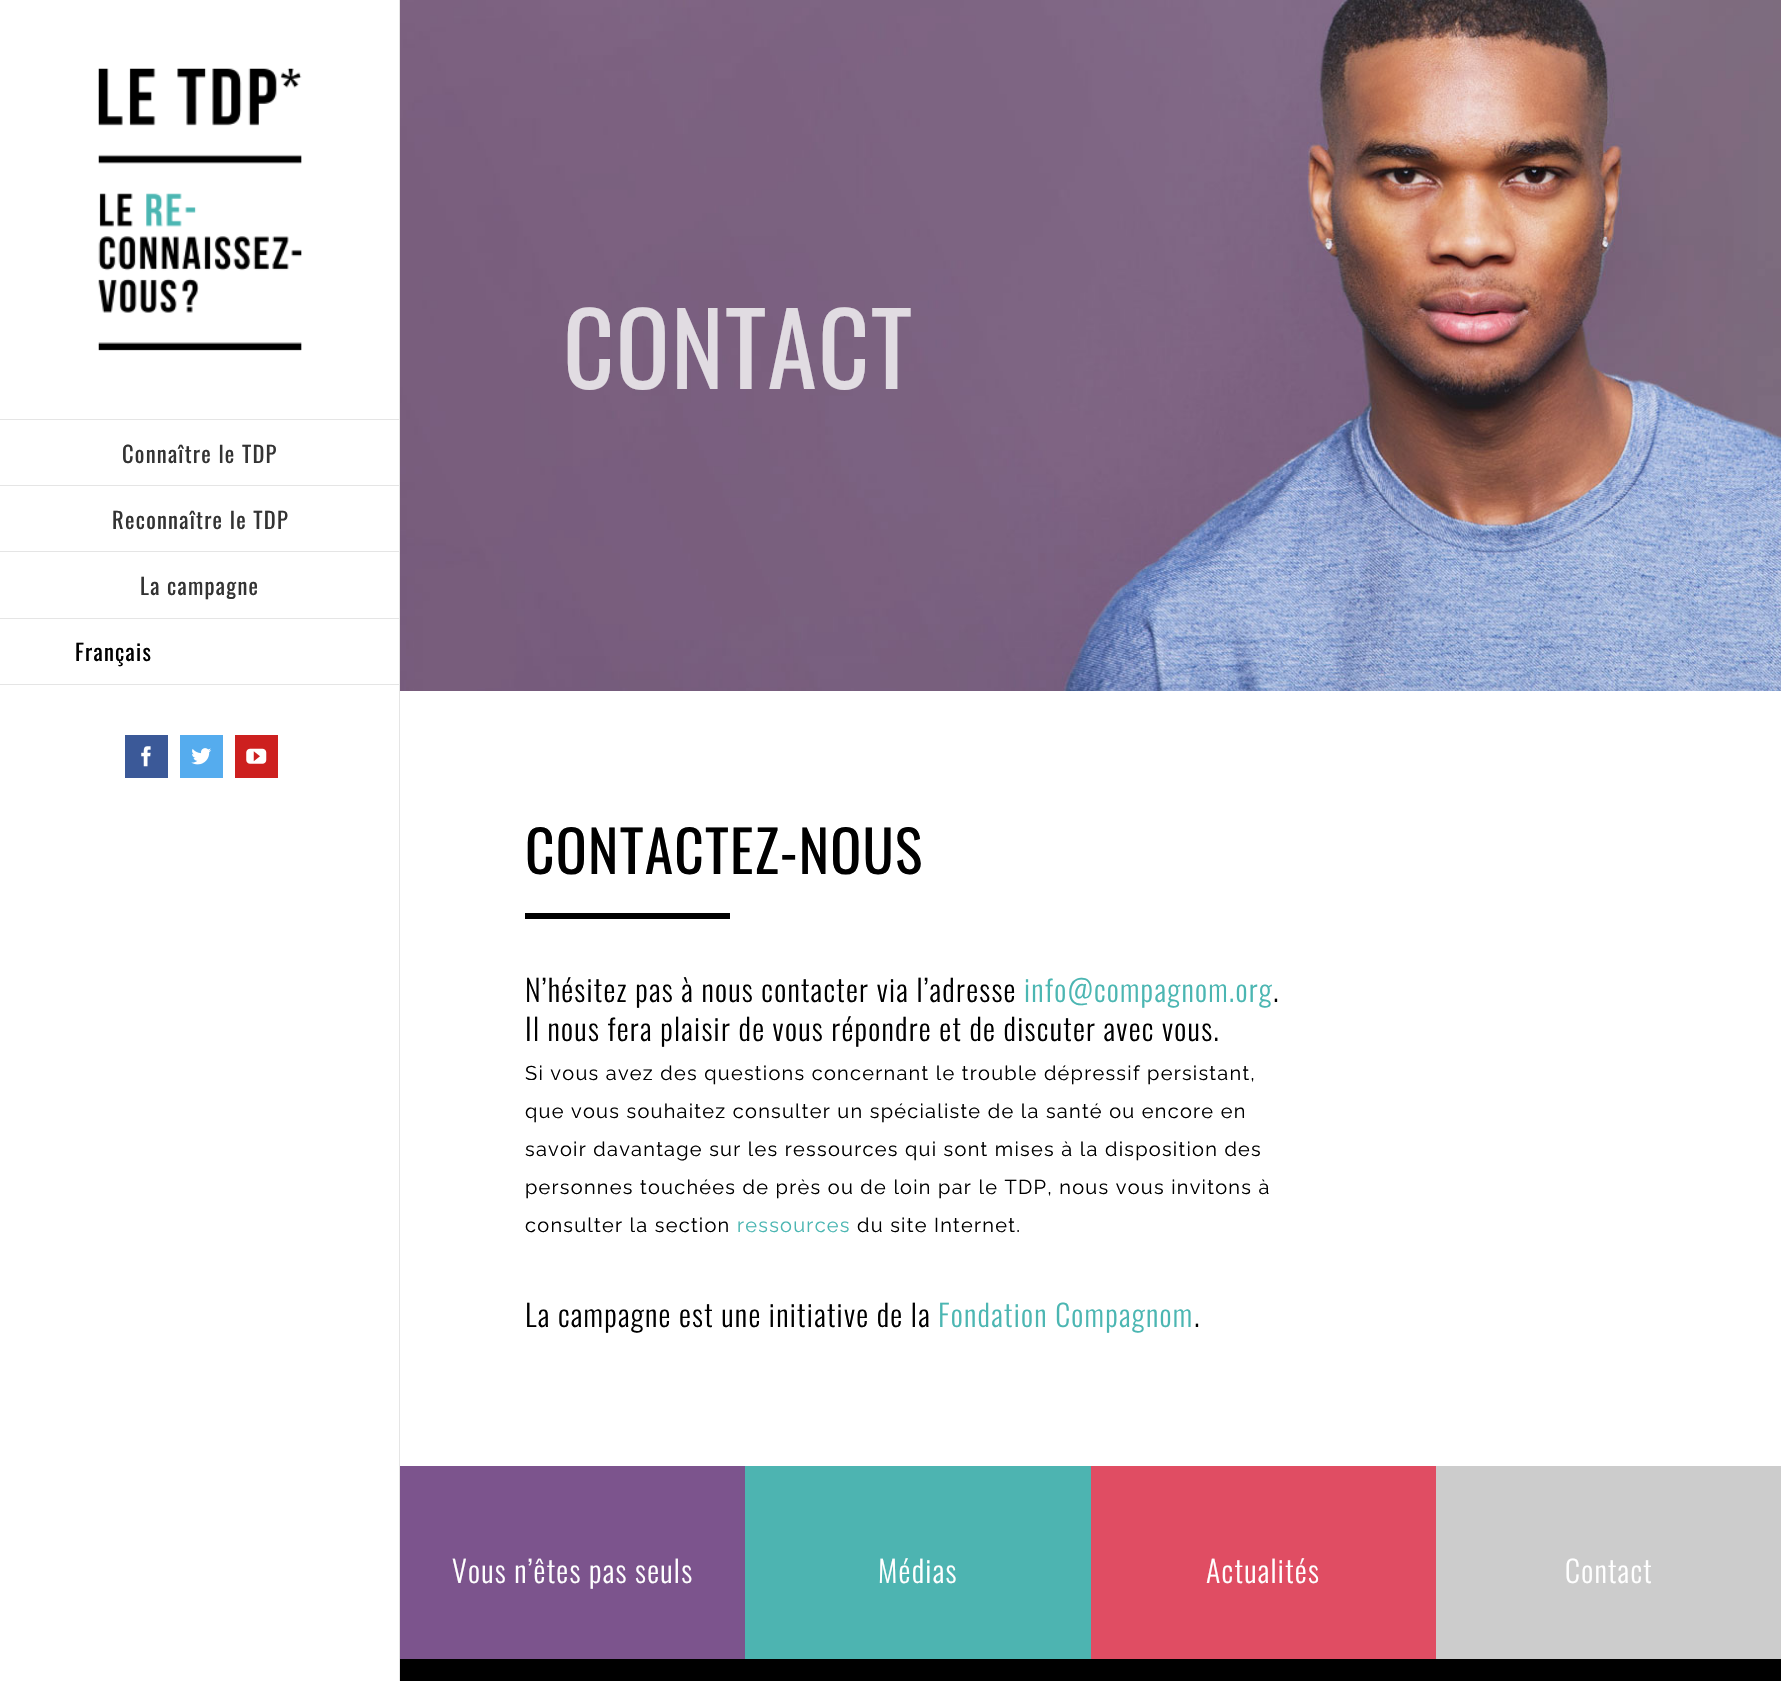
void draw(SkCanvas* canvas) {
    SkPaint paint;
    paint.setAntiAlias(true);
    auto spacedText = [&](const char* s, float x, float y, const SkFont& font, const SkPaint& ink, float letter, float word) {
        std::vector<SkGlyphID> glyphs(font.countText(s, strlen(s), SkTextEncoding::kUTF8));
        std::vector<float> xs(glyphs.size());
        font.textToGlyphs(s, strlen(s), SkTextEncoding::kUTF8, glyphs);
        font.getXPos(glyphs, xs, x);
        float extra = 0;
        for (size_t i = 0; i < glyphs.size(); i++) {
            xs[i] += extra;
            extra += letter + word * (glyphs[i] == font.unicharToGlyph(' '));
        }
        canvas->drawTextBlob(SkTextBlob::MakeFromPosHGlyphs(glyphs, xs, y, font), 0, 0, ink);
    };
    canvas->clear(0xFFFFFFFF);
    canvas->drawImageRect(SkImages::DeferredFromEncodedData(SkData::MakeFromFileName("img1.png")), SkRect::MakeXYWH(400, 0, 1381, 691), SkSamplingOptions());
    SkFont font1(fontMgr->matchFamilyStyle("Oswald", SkFontStyle::Normal()), 100);
    font1.setSubpixel(true);
    paint.setColor(0xFFE1DCE2);
    spacedText("CONTACT", 563, 389, font1, paint, 1.25f, 0);
    canvas->drawImageRect(SkImages::DeferredFromEncodedData(SkData::MakeFromFileName("img2.png")), SkRect::MakeXYWH(98, 68, 204, 283), SkSamplingOptions());
    paint.setColor(0xFFE5E5E5);
    canvas->drawRect(SkRect::MakeXYWH(399, 0, 1, 1681), paint);
    canvas->drawRect(SkRect::MakeXYWH(0, 419, 400, 1), paint);
    canvas->drawRect(SkRect::MakeXYWH(0, 485, 400, 1), paint);
    SkFont font2(fontMgr->matchFamilyStyle("Oswald", SkFontStyle::Normal()), 22.5f);
    font2.setSubpixel(true);
    paint.setColor(0xFF333333);
    spacedText("Connaître le TDP", 122, 463, font2, paint, 1.25f, 0);
    paint.setColor(0xFFE5E5E5);
    canvas->drawRect(SkRect::MakeXYWH(0, 551, 400, 1), paint);
    paint.setColor(0xFF333333);
    spacedText("Reconnaître le TDP", 112, 529, font2, paint, 1.25f, 0);
    paint.setColor(0xFFE5E5E5);
    canvas->drawRect(SkRect::MakeXYWH(0, 618, 400, 1), paint);
    paint.setColor(0xFF333333);
    spacedText("La campagne", 140, 595, font2, paint, 1.25f, 0);
    paint.setColor(0xFFE5E5E5);
    canvas->drawRect(SkRect::MakeXYWH(0, 684, 400, 1), paint);
    paint.setColor(0xFF000000);
    spacedText("Français", 75, 661, font2, paint, 1.25f, 0);
    paint.setColor(0xFF3B5998);
    canvas->drawRect(SkRect::MakeXYWH(125, 735, 43, 43), paint);
    canvas->drawImageRect(SkImages::DeferredFromEncodedData(SkData::MakeFromFileName("img3.png")), SkRect::MakeXYWH(141, 746, 10, 21), SkSamplingOptions());
    paint.setColor(0xFF55ACEE);
    canvas->drawRect(SkRect::MakeXYWH(180, 735, 43, 43), paint);
    canvas->drawImageRect(SkImages::DeferredFromEncodedData(SkData::MakeFromFileName("img4.png")), SkRect::MakeXYWH(191, 748, 21, 17), SkSamplingOptions());
    paint.setColor(0xFFCD201F);
    canvas->drawRect(SkRect::MakeXYWH(235, 735, 43, 43), paint);
    canvas->drawImageRect(SkImages::DeferredFromEncodedData(SkData::MakeFromFileName("img5.png")), SkRect::MakeXYWH(246, 748, 21, 16), SkSamplingOptions());
    SkFont font3(fontMgr->matchFamilyStyle("Oswald", SkFontStyle::Normal()), 57.5f);
    font3.setSubpixel(true);
    paint.setColor(0xFF000000);
    spacedText("CONTACTEZ-NOUS", 525, 874, font3, paint, 1.25f, 0);
    canvas->drawRect(SkRect::MakeXYWH(525, 913, 205, 6), paint);
    SkFont font4(fontMgr->matchFamilyStyle("Oswald", SkFontStyle(300, SkFontStyle::kNormal_Width, SkFontStyle::kUpright_Slant)), 30);
    font4.setSubpixel(true);
    spacedText("N’hésitez pas à nous contacter via l’adresse", 525, 1002, font4, paint, 1.25f, 0);
    paint.setColor(0xFF4BB6B2);
    spacedText("info@compagnom.org", 1024, 1002, font4, paint, 1.25f, 0);
    paint.setColor(0xFF000000);
    spacedText(".", 1273, 1002, font4, paint, 1.25f, 0);
    spacedText("Il nous fera plaisir de vous répondre et de discuter avec vous.", 525, 1041, font4, paint, 1.25f, 0);
    SkFont font5(fontMgr->matchFamilyStyle("Raleway", SkFontStyle(100, SkFontStyle::kNormal_Width, SkFontStyle::kUpright_Slant)), 20);
    font5.setSubpixel(true);
    spacedText("Si vous avez des questions concernant le trouble dépressif persistant,", 525, 1080, font5, paint, 1.25f, 0);
    spacedText("que vous souhaitez consulter un spécialiste de la santé ou encore en", 525, 1118, font5, paint, 1.25f, 0);
    spacedText("savoir davantage sur les ressources qui sont mises à la disposition des", 525, 1156, font5, paint, 1.25f, 0);
    spacedText("personnes touchées de près ou de loin par le TDP, nous vous invitons à", 525, 1194, font5, paint, 1.25f, 0);
    spacedText("consulter la section", 525, 1232, font5, paint, 1.25f, 0);
    paint.setColor(0xFF4BB6B2);
    spacedText("ressources", 737, 1232, font5, paint, 1.25f, 0);
    paint.setColor(0xFF000000);
    spacedText("du site Internet.", 857, 1232, font5, paint, 1.25f, 0);
    spacedText("La campagne est une initiative de la", 525, 1327, font4, paint, 1.25f, 0);
    paint.setColor(0xFF4BB6B2);
    spacedText("Fondation Compagnom", 938, 1327, font4, paint, 1.25f, 0);
    paint.setColor(0xFF000000);
    spacedText(".", 1194, 1327, font4, paint, 1.25f, 0);
    paint.setColor(0xFF7C548D);
    canvas->drawRect(SkRect::MakeXYWH(400, 1466, 345, 193), paint);
    paint.setColor(0xFFFFFFFF);
    spacedText("Vous n’êtes pas seuls", 452, 1583, font4, paint, 1.25f, 0);
    paint.setColor(0xFF4DB4B1);
    canvas->drawRect(SkRect::MakeXYWH(745, 1466, 346, 193), paint);
    paint.setColor(0xFFFFFFFF);
    spacedText("Médias", 878, 1583, font4, paint, 1.25f, 0);
    paint.setColor(0xFFE04D63);
    canvas->drawRect(SkRect::MakeXYWH(1091, 1466, 345, 193), paint);
    paint.setColor(0xFFFFFFFF);
    spacedText("Actualités", 1206, 1583, font4, paint, 1.25f, 0);
    paint.setColor(0xFFCCCCCC);
    canvas->drawRect(SkRect::MakeXYWH(1436, 1466, 345, 193), paint);
    paint.setColor(0xFFFFFFFF);
    spacedText("Contact", 1565, 1583, font4, paint, 1.25f, 0);
    paint.setColor(0xFF000000);
    canvas->drawRect(SkRect::MakeXYWH(400, 1659, 1381, 22), paint);
}
